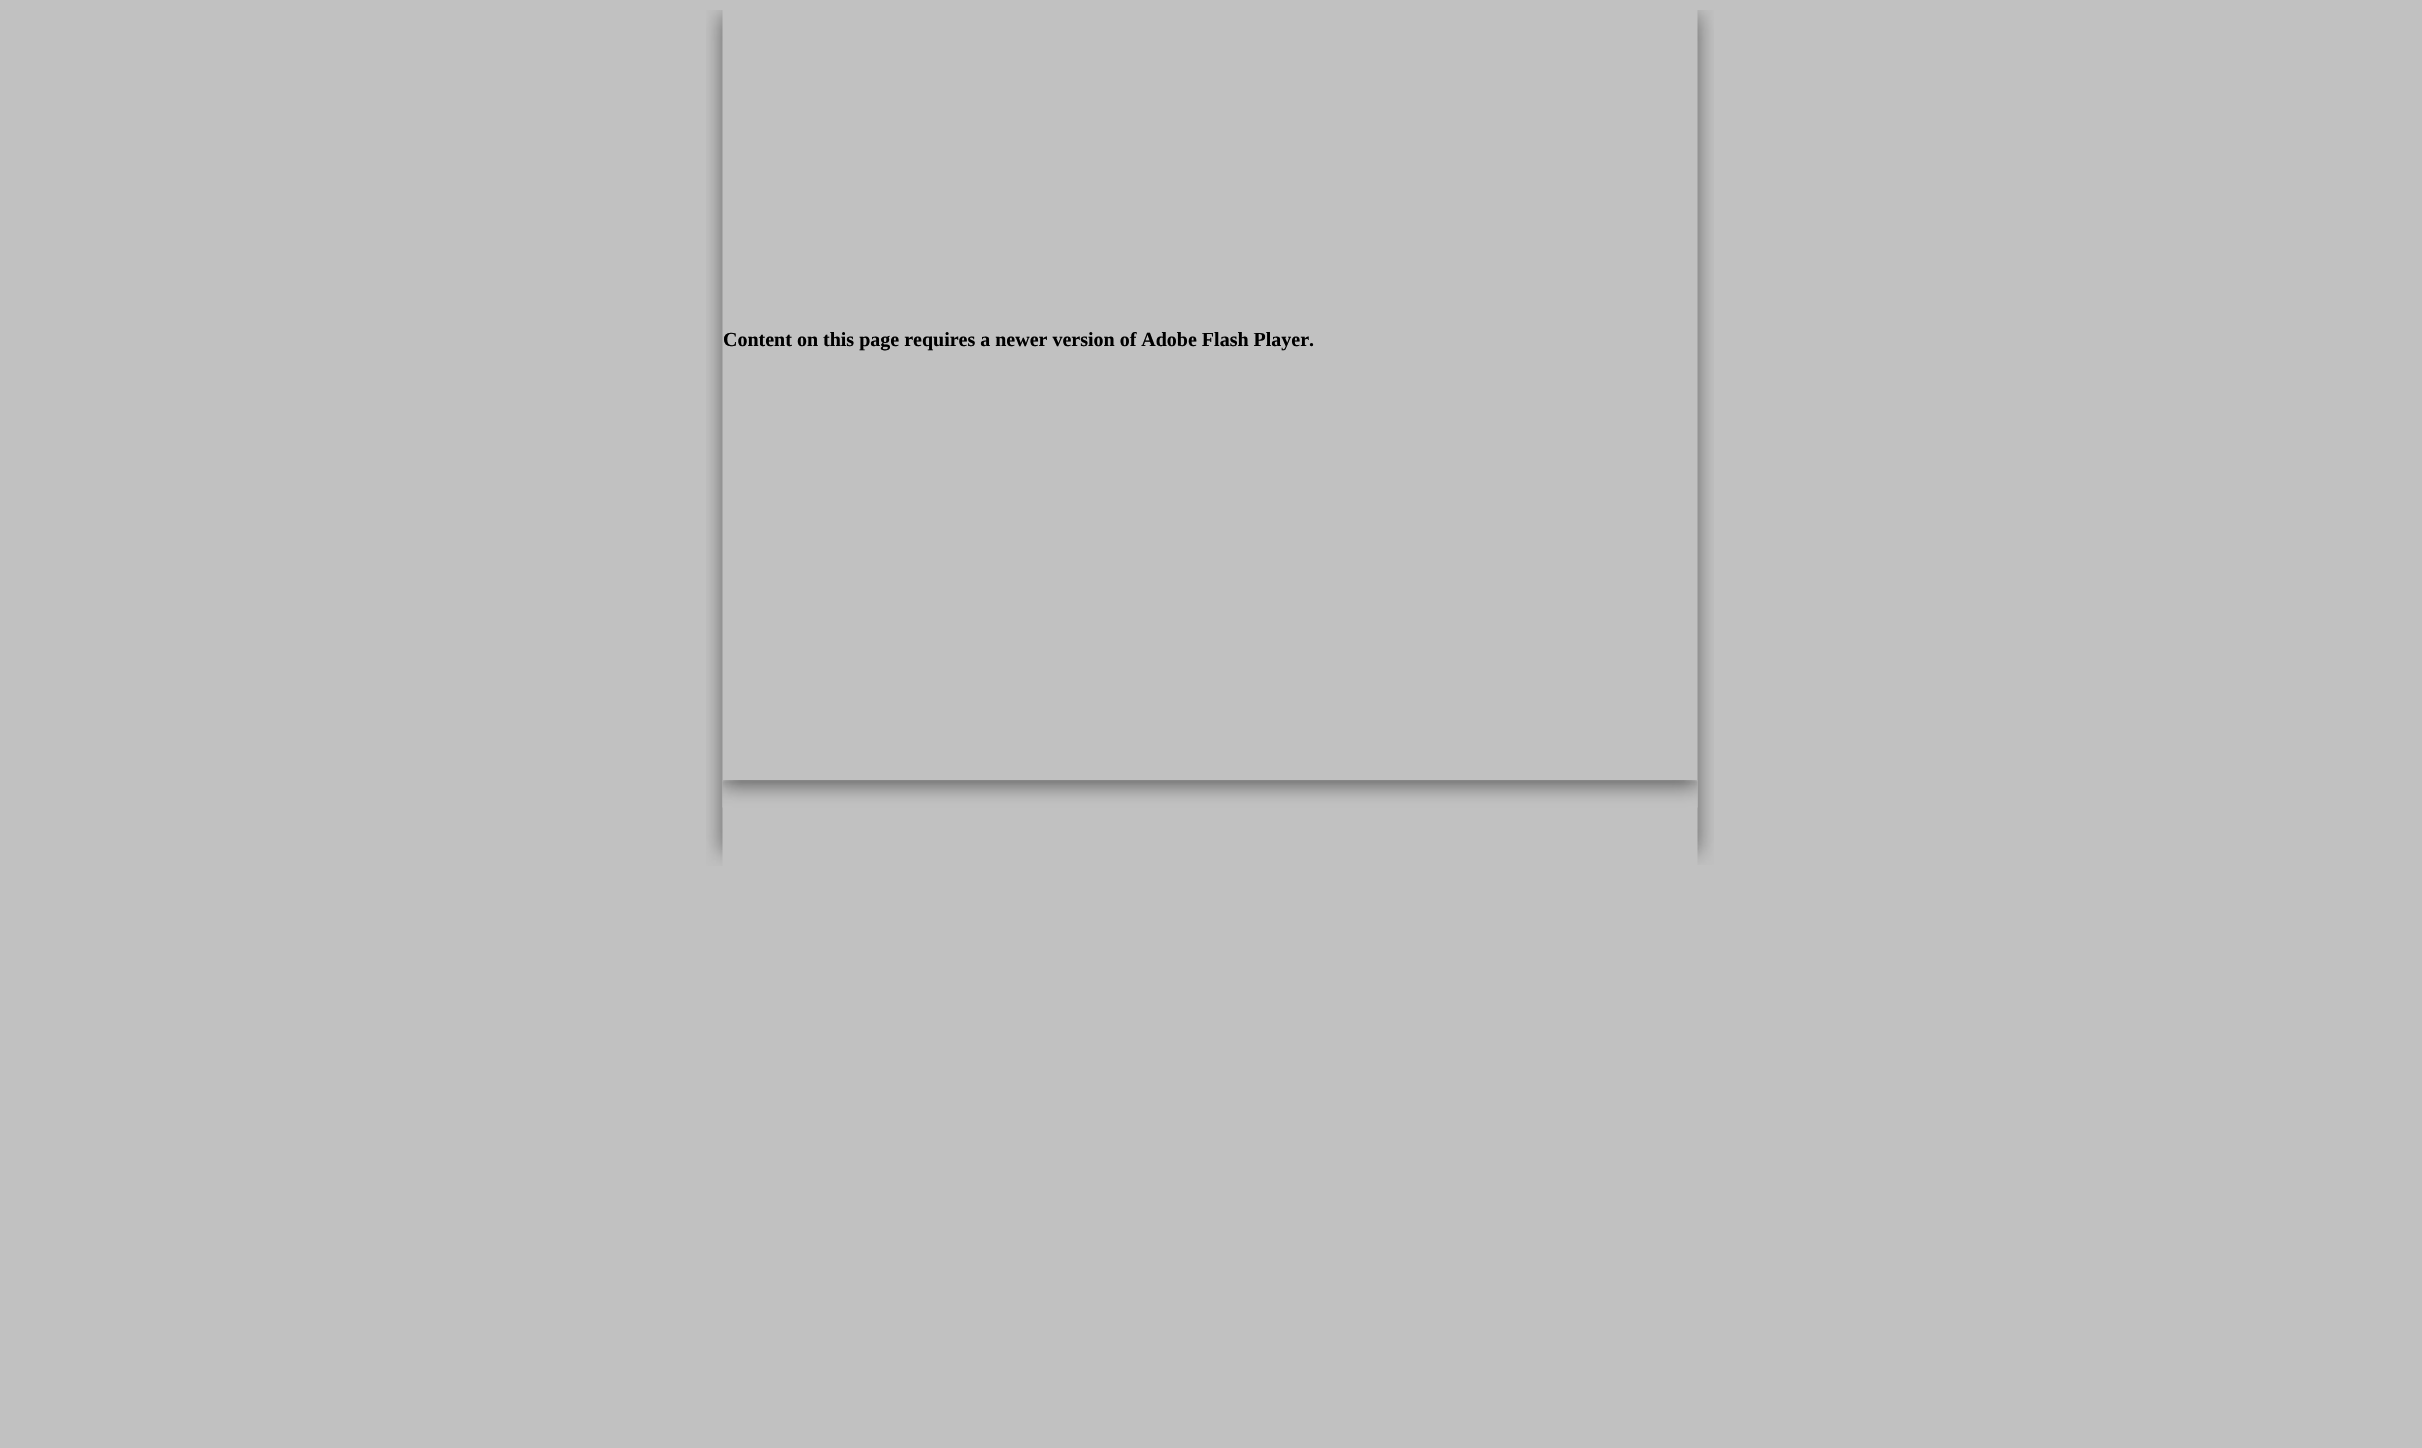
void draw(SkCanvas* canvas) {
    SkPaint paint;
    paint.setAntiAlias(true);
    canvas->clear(0xFFC1C1C1);
    canvas->drawImageRect(SkImages::DeferredFromEncodedData(SkData::MakeFromFileName("img1.png")), SkRect::MakeXYWH(706, 10, 17, 856), SkSamplingOptions());
    SkFont font1(fontMgr->matchFamilyStyle("Liberation Serif", SkFontStyle::Bold()), 20);
    font1.setSubpixel(true);
    paint.setColor(0xFF000000);
    canvas->drawString("Content on this page requires a newer version of Adobe Flash Player.", 723, 346, font1, paint);
    canvas->drawImageRect(SkImages::DeferredFromEncodedData(SkData::MakeFromFileName("img2.png")), SkRect::MakeXYWH(1697, 10, 17, 855), SkSamplingOptions());
    canvas->drawImageRect(SkImages::DeferredFromEncodedData(SkData::MakeFromFileName("img3.png")), SkRect::MakeXYWH(722, 780, 976, 28), SkSamplingOptions());
}
